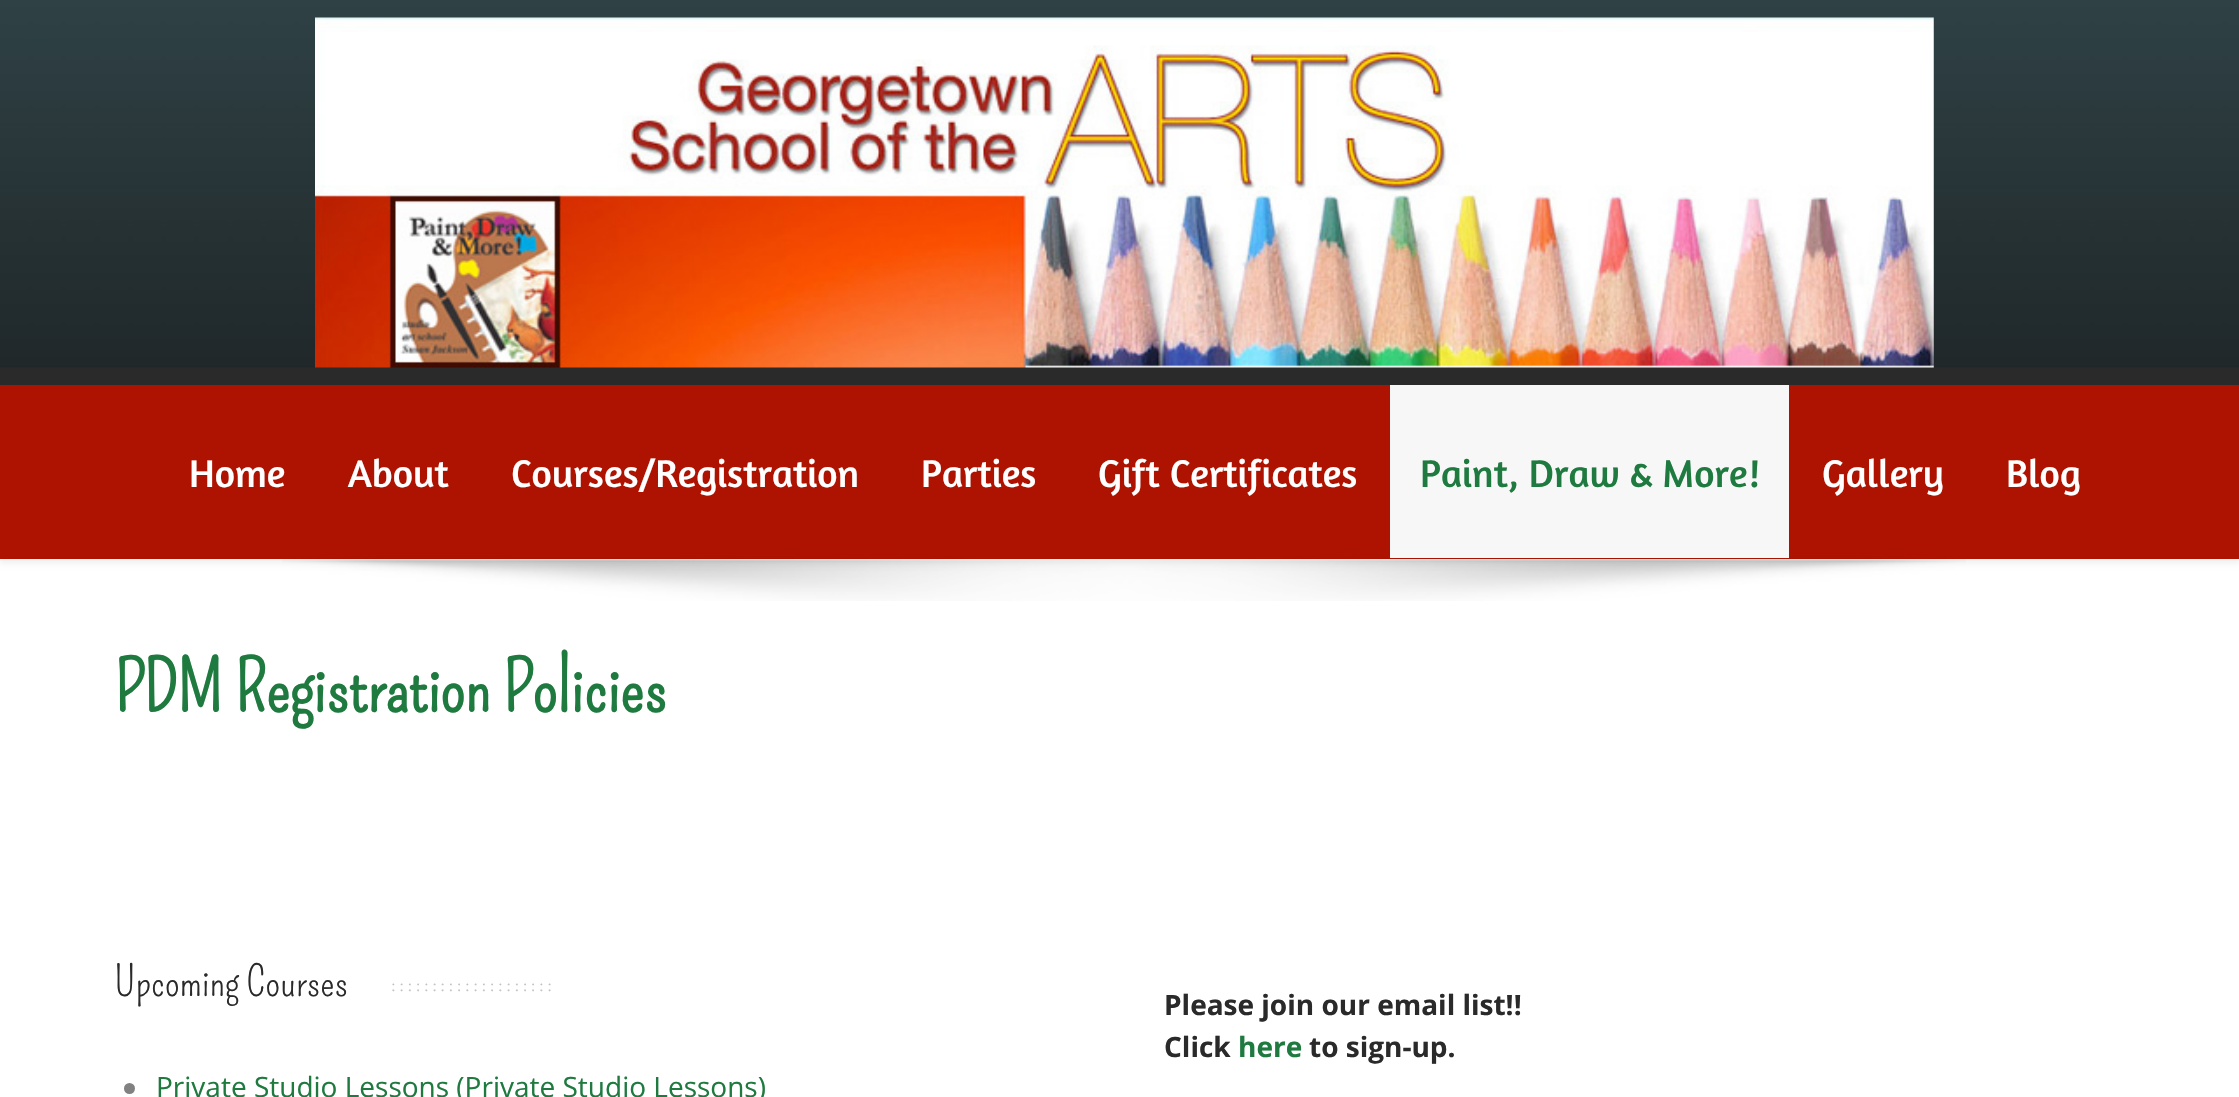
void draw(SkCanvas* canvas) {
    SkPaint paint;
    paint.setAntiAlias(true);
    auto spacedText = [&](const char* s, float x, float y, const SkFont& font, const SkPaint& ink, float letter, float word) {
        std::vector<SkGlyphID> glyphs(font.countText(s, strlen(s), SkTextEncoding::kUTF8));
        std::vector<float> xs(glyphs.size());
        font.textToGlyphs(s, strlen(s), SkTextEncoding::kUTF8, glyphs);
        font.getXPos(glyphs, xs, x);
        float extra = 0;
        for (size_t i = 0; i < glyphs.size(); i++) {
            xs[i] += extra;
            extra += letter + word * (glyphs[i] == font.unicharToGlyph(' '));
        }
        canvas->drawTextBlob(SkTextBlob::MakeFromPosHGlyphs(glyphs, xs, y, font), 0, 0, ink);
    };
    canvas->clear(0xFFFFFFFF);
    paint.setColor(0xFF2A2A2A);
    canvas->drawRect(SkRect::MakeXYWH(0, 367, 2239, 18), paint);
    canvas->drawImageRect(SkImages::DeferredFromEncodedData(SkData::MakeFromFileName("img1.png")), SkRect::MakeXYWH(0, 0, 2239, 368), SkSamplingOptions());
    canvas->drawImageRect(SkImages::DeferredFromEncodedData(SkData::MakeFromFileName("img2.png")), SkRect::MakeXYWH(315, 17, 1619, 351), SkSamplingOptions());
    paint.setColor(0x0D000000);
    paint.setMaskFilter(SkMaskFilter::MakeBlur(kNormal_SkBlurStyle, 2.5f));
    canvas->drawRect(SkRect::MakeXYWH(0, 390, 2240, 174), paint);
    paint.setMaskFilter(nullptr);
    paint.setColor(0xFFAE1301);
    canvas->drawRect(SkRect::MakeXYWH(0, 385, 2239, 174), paint);
    SkFont font1(fontMgr->matchFamilyStyle("Amaranth", SkFontStyle::Normal()), 39.25f);
    font1.setSubpixel(true);
    paint.setColor(0xFFFFFFFF);
    canvas->drawString("Home", 189, 487, font1, paint);
    canvas->drawString("About", 348, 487, font1, paint);
    canvas->drawString("Courses/Registration", 511, 487, font1, paint);
    canvas->drawString("Parties", 921, 487, font1, paint);
    canvas->drawString("Gift Certificates", 1098, 487, font1, paint);
    paint.setColor(0xFFF7F7F7);
    canvas->drawRect(SkRect::MakeXYWH(1390, 385, 399, 173), paint);
    paint.setColor(0xFF1F7A40);
    canvas->drawString("Paint, Draw & More!", 1420, 487, font1, paint);
    paint.setColor(0xFFFFFFFF);
    canvas->drawString("Gallery", 1822, 487, font1, paint);
    canvas->drawString("Blog", 2006, 487, font1, paint);
    canvas->drawImageRect(SkImages::DeferredFromEncodedData(SkData::MakeFromFileName("img3.png")), SkRect::MakeXYWH(282, 558, 1684, 43), SkSamplingOptions());
    SkFont font2(fontMgr->matchFamilyStyle("Pompiere", SkFontStyle::Bold()), 70);
    font2.setSubpixel(true);
    paint.setColor(0xFF1F7A40);
    canvas->drawString("PDM Registration Policies", 114, 712, font2, paint);
    SkFont font3(fontMgr->matchFamilyStyle("Pompiere", SkFontStyle::Normal()), 42);
    font3.setSubpixel(true);
    paint.setColor(0xFF2A2A2A);
    canvas->drawString("Upcoming Courses", 114, 996, font3, paint);
    SkFont font4(fontMgr->matchFamilyStyle("Pompiere", SkFontStyle::Normal()), 21);
    font4.setSubpixel(true);
    paint.setColor(0xFFC3C3C3);
    spacedText("::::::::::::::::::::", 391, 991, font4, paint, 3.5f, 0);
    paint.setColor(0xFF818181);
    canvas->drawCircle(129.5f, 1088.5f, 5.5f, paint);
    SkFont font5(fontMgr->matchFamilyStyle("Open Sans", SkFontStyle::Normal()), 28);
    font5.setSubpixel(true);
    paint.setColor(0xFF1F7A40);
    canvas->drawString("Private Studio Lessons (Private Studio Lessons)", 156, 1097, font5, paint);
    SkFont font6(fontMgr->matchFamilyStyle("Open Sans", SkFontStyle::Bold()), 28);
    font6.setSubpixel(true);
    paint.setColor(0xFF2A2A2A);
    canvas->drawString("Please join our email list!!", 1164, 1015, font6, paint);
    canvas->drawString("Click", 1164, 1057, font6, paint);
    paint.setColor(0xFF1F7A40);
    canvas->drawString("here", 1238, 1057, font6, paint);
    paint.setColor(0xFF2A2A2A);
    canvas->drawString("to sign-up.", 1309, 1057, font6, paint);
}
